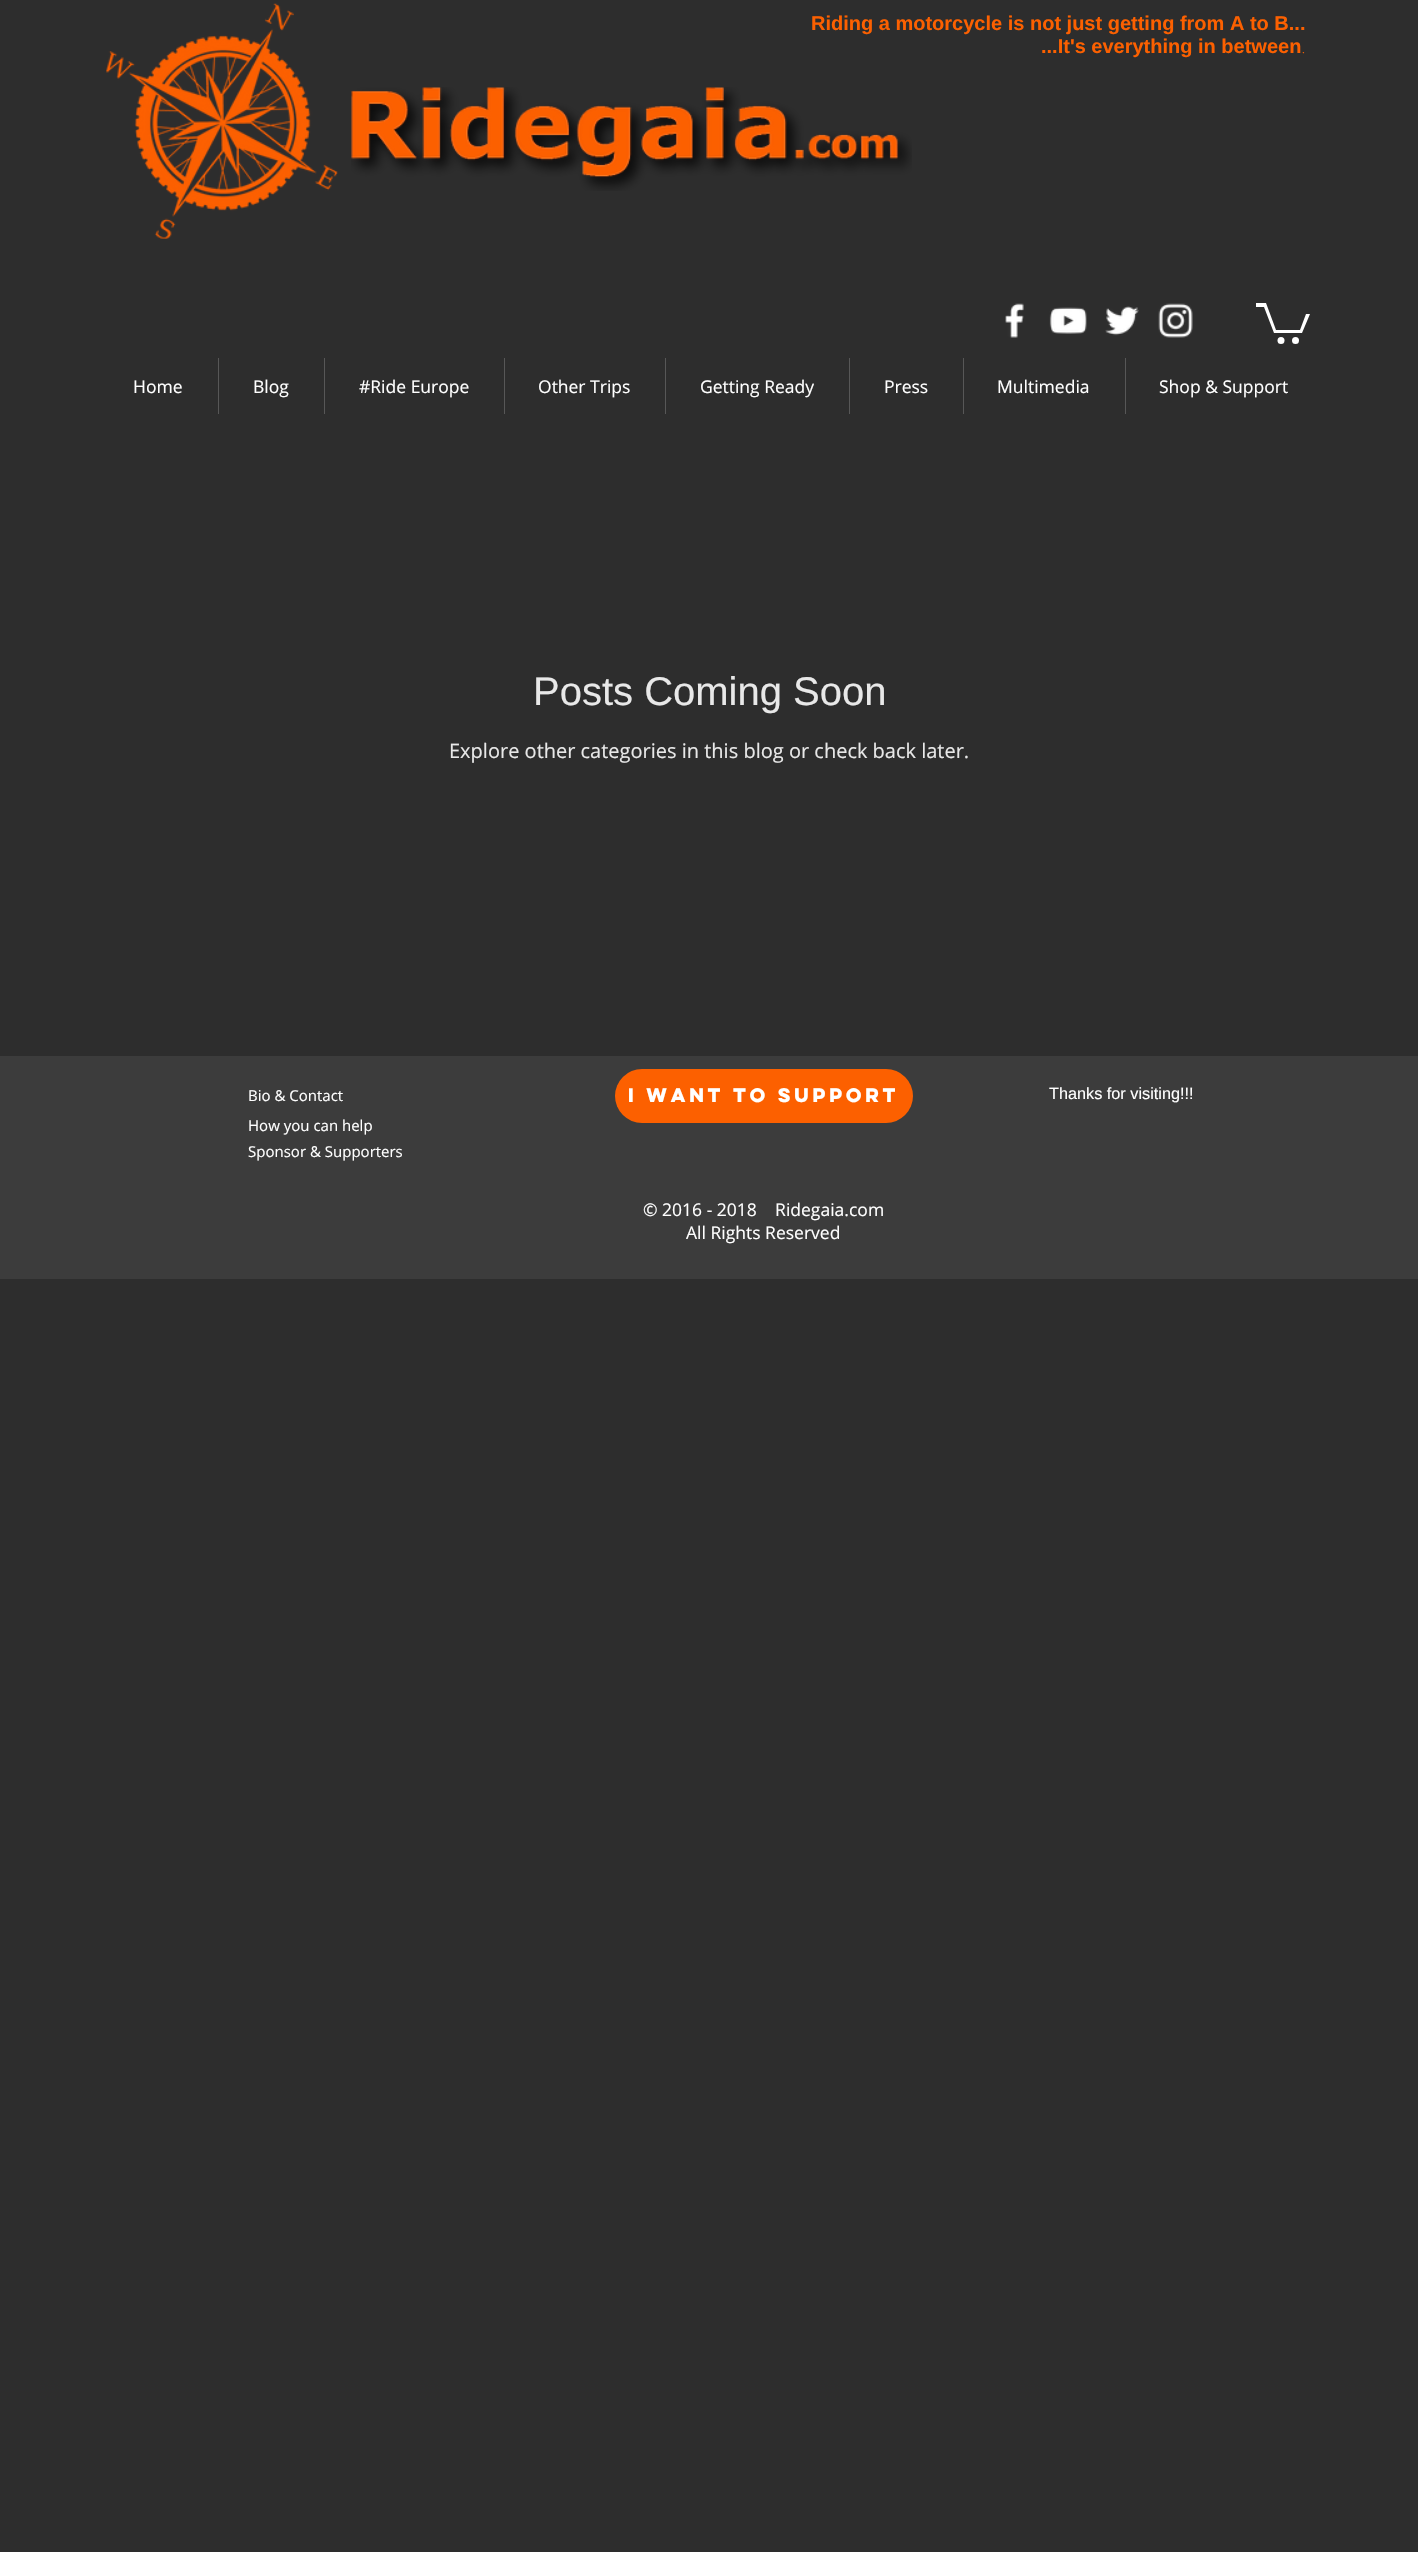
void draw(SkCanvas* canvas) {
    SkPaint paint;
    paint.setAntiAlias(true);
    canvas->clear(0xFF2D2D2D);
    canvas->drawImageRect(SkImages::DeferredFromEncodedData(SkData::MakeFromFileName("img1.png")), SkRect::MakeXYWH(106, 3, 232, 236), SkSamplingOptions());
    SkFont font1(fontMgr->matchFamilyStyle("Liberation Sans", SkFontStyle::Bold()), 20);
    font1.setSubpixel(true);
    paint.setColor(0xFFFC6000);
    canvas->drawString("Riding a motorcycle is not just getting from A to B...", 811, 30, font1, paint);
    canvas->drawString("...It's everything in between", 1041, 53, font1, paint);
    SkFont font2(fontMgr->matchFamilyStyle("Mr De Haviland", SkFontStyle::Bold()), 17.5f);
    font2.setSubpixel(true);
    canvas->drawString(".", 1302, 53, font2, paint);
    canvas->drawImageRect(SkImages::DeferredFromEncodedData(SkData::MakeFromFileName("img2.png")), SkRect::MakeXYWH(351, 87, 561, 104), SkSamplingOptions());
    canvas->drawImageRect(SkImages::DeferredFromEncodedData(SkData::MakeFromFileName("img3.png")), SkRect::MakeXYWH(1005, 303, 19, 35), SkSamplingOptions());
    canvas->drawImageRect(SkImages::DeferredFromEncodedData(SkData::MakeFromFileName("img4.png")), SkRect::MakeXYWH(1049, 307, 38, 27), SkSamplingOptions());
    canvas->drawImageRect(SkImages::DeferredFromEncodedData(SkData::MakeFromFileName("img5.png")), SkRect::MakeXYWH(1105, 306, 34, 30), SkSamplingOptions());
    canvas->drawImageRect(SkImages::DeferredFromEncodedData(SkData::MakeFromFileName("img6.png")), SkRect::MakeXYWH(1158, 303, 35, 35), SkSamplingOptions());
    paint.setColor(0xFFFFFFFF);
    canvas->drawPath(SkPathBuilder().moveTo(1310, 314).lineTo(1302, 333).lineTo(1274, 333).lineTo(1264, 307).lineTo(1256, 307).lineTo(1256, 303).lineTo(1266, 303).lineTo(1276, 330).lineTo(1300, 330).lineTo(1306, 314).detach(), paint);
    canvas->drawCircle(1295.5f, 340.5f, 3.5f, paint);
    canvas->drawCircle(1281, 340.5f, 3.5f, paint);
    SkFont font3(fontMgr->matchFamilyStyle("Open Sans", SkFontStyle::Normal()), 17.5f);
    font3.setSubpixel(true);
    canvas->drawString("Home", 133, 393, font3, paint);
    paint.setColor(0xFF575757);
    canvas->drawRect(SkRect::MakeXYWH(218, 358, 1, 56), paint);
    paint.setColor(0xFFFFFFFF);
    canvas->drawString("Blog", 253, 393, font3, paint);
    paint.setColor(0xFF575757);
    canvas->drawRect(SkRect::MakeXYWH(324, 358, 1, 56), paint);
    paint.setColor(0xFFFFFFFF);
    canvas->drawString("#Ride Europe", 359, 393, font3, paint);
    paint.setColor(0xFF575757);
    canvas->drawRect(SkRect::MakeXYWH(504, 358, 1, 56), paint);
    paint.setColor(0xFFFFFFFF);
    canvas->drawString("Other Trips", 538, 393, font3, paint);
    paint.setColor(0xFF575757);
    canvas->drawRect(SkRect::MakeXYWH(665, 358, 1, 56), paint);
    paint.setColor(0xFFFFFFFF);
    canvas->drawString("Getting Ready", 700, 393, font3, paint);
    paint.setColor(0xFF575757);
    canvas->drawRect(SkRect::MakeXYWH(849, 358, 1, 56), paint);
    paint.setColor(0xFFFFFFFF);
    canvas->drawString("Press", 884, 393, font3, paint);
    paint.setColor(0xFF575757);
    canvas->drawRect(SkRect::MakeXYWH(963, 358, 1, 56), paint);
    paint.setColor(0xFFFFFFFF);
    canvas->drawString("Multimedia", 997, 393, font3, paint);
    paint.setColor(0xFF575757);
    canvas->drawRect(SkRect::MakeXYWH(1125, 358, 1, 56), paint);
    paint.setColor(0xFFFFFFFF);
    canvas->drawString("Shop & Support", 1159, 393, font3, paint);
    SkFont font4(fontMgr->matchFamilyStyle("Liberation Sans", SkFontStyle::Normal()), 40);
    font4.setSubpixel(true);
    paint.setColor(0xFFE8E8E8);
    canvas->drawString("Posts Coming Soon", 533, 705, font4, paint);
    SkFont font5(fontMgr->matchFamilyStyle("Open Sans", SkFontStyle::Normal()), 20);
    font5.setSubpixel(true);
    canvas->drawString("Explore other categories in this blog or check back later.", 449, 758, font5, paint);
    paint.setColor(0xFF3C3C3C);
    canvas->drawRect(SkRect::MakeXYWH(0, 1056, 1418, 223), paint);
    SkFont font6(fontMgr->matchFamilyStyle("Open Sans", SkFontStyle::Normal()), 15);
    font6.setSubpixel(true);
    paint.setColor(0xFFFFFFFF);
    canvas->drawString("Bio & Contact", 248, 1101, font6, paint);
    paint.setColor(0xFFFC6000);
    canvas->drawRoundRect(SkRect::MakeXYWH(615, 1069, 298, 54), 27, 27, paint);
    SkFont font7(fontMgr->matchFamilyStyle("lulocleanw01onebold", SkFontStyle::Bold()), 17.5f);
    font7.setSubpixel(true);
    paint.setColor(0xFFFFFFFF);
    canvas->drawString("I want to Support", 628, 1102, font7, paint);
    SkFont font8(fontMgr->matchFamilyStyle("Liberation Sans", SkFontStyle::Normal()), 16.25f);
    font8.setSubpixel(true);
    canvas->drawString("Thanks for visiting!!!", 1049, 1099, font8, paint);
    canvas->drawString("How you can help", 248, 1131, font6, paint);
    canvas->drawString("Sponsor & Supporters", 248, 1157, font6, paint);
    canvas->drawString("© 2016 - 2018    Ridegaia.com", 643, 1216, font3, paint);
    canvas->drawString("All Rights Reserved", 686, 1239, font3, paint);
}
